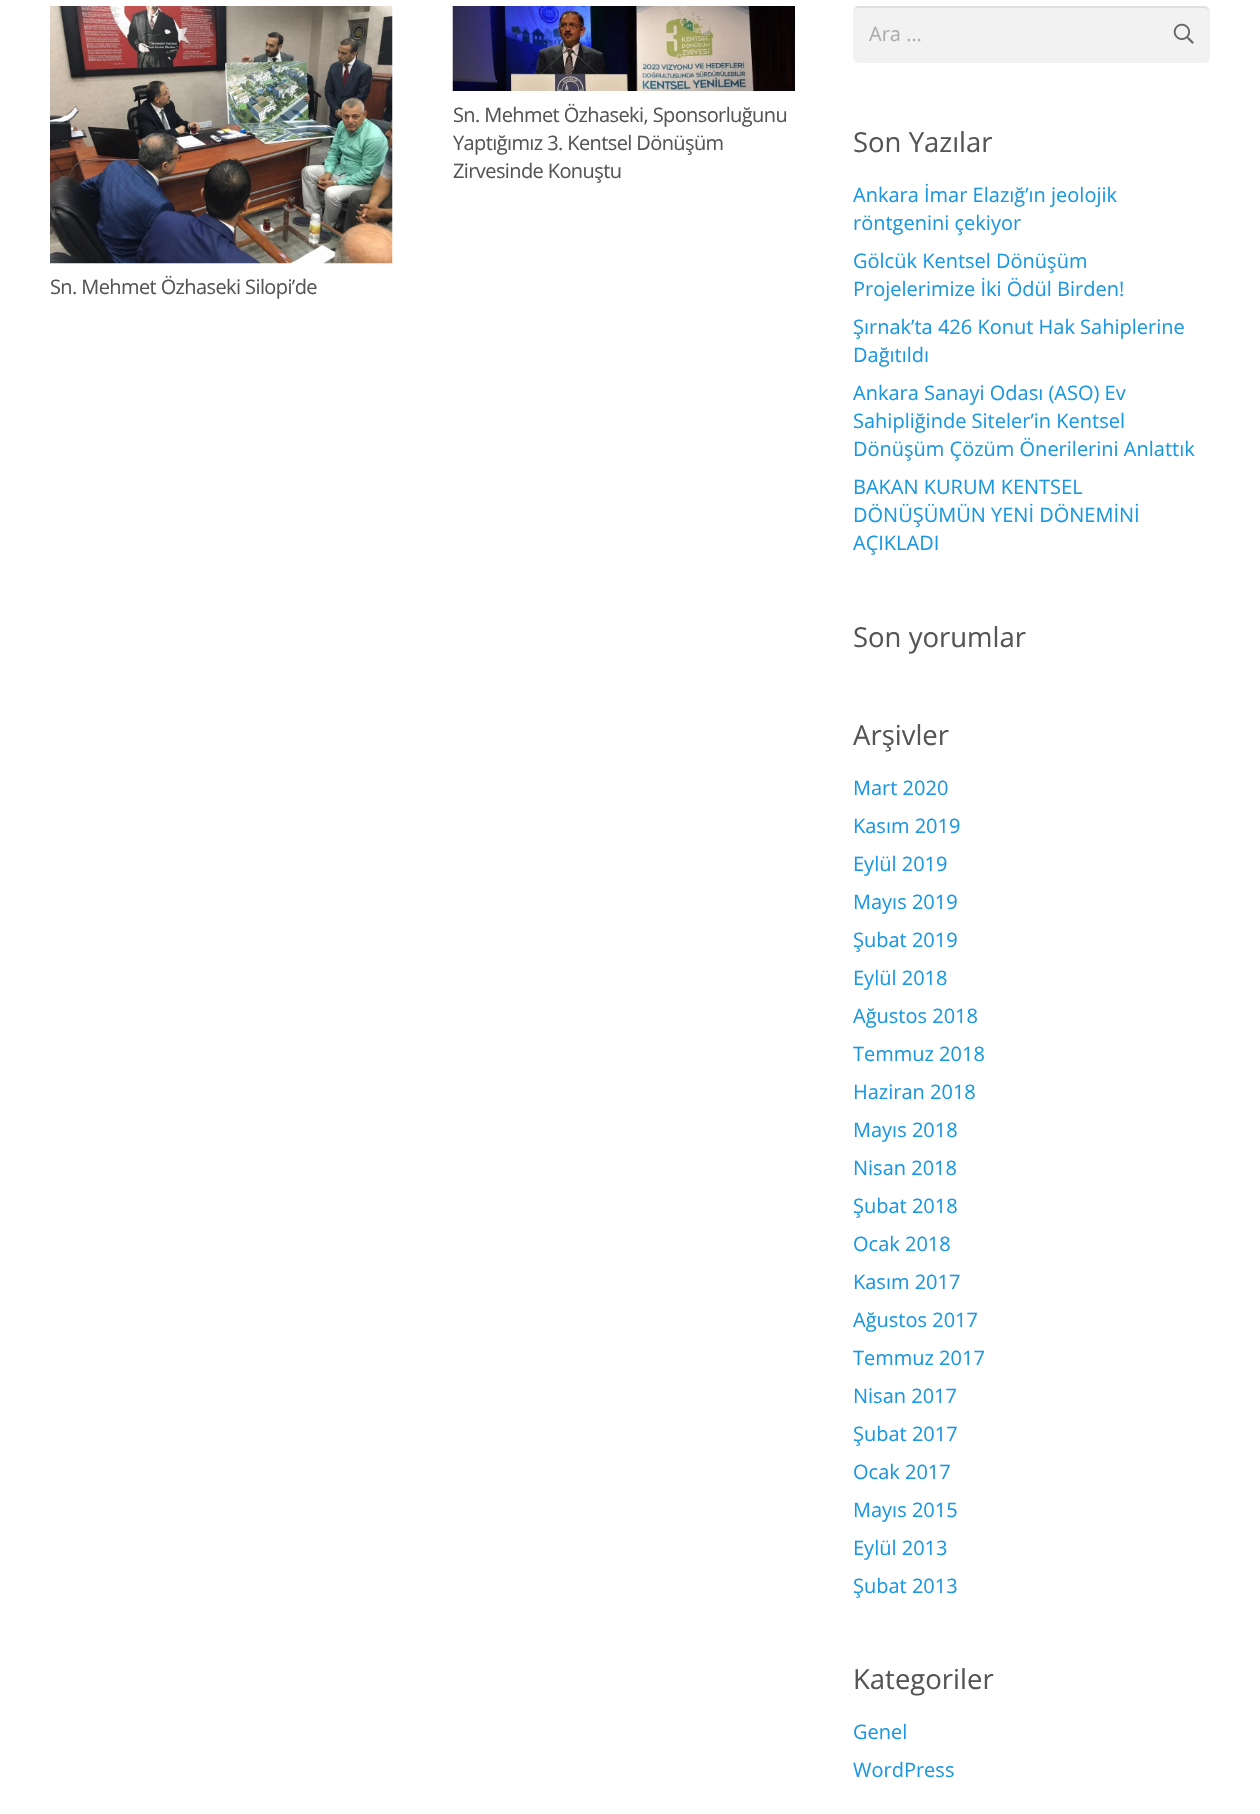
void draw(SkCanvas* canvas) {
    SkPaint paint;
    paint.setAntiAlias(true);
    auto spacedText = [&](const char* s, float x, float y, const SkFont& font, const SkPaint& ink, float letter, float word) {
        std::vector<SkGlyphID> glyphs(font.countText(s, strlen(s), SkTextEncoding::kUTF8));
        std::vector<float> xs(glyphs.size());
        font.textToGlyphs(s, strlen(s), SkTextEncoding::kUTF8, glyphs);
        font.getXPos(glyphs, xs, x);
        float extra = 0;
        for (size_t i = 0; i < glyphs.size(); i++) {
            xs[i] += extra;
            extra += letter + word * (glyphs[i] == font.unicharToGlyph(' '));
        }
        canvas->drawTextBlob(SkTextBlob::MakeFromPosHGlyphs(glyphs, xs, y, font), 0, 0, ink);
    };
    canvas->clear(0xFFFFFFFF);
    canvas->drawImageRect(SkImages::DeferredFromEncodedData(SkData::MakeFromFileName("img1.png")), SkRect::MakeXYWH(452, 6, 343, 85), SkSamplingOptions());
    SkFont font1(fontMgr->matchFamilyStyle("Open Sans", SkFontStyle::Normal()), 20);
    font1.setSubpixel(true);
    paint.setColor(0xFF555555);
    spacedText("Sn. Mehmet Özhaseki, Sponsorluğunu", 453, 122, font1, paint, -0.6f, 0);
    spacedText("Yaptığımız 3. Kentsel Dönüşüm", 453, 150, font1, paint, -0.6f, 0);
    spacedText("Zirvesinde Konuştu", 453, 178, font1, paint, -0.6f, 0);
    canvas->drawImageRect(SkImages::DeferredFromEncodedData(SkData::MakeFromFileName("img2.png")), SkRect::MakeXYWH(50, 6, 343, 258), SkSamplingOptions());
    spacedText("Sn. Mehmet Özhaseki Silopi’de", 50, 294, font1, paint, -0.6f, 0);
    paint.setColor(0xFFF2F2F2);
    canvas->drawRoundRect(SkRect::MakeXYWH(853, 6, 357, 57), 6, 6, paint);
    paint.setColor(0x14000000);
    canvas->drawPath(SkPathBuilder().moveTo(858, 8).lineTo(1204, 8).cubicTo(1207, 8, 1210, 10, 1210, 14).lineTo(1210, 12).cubicTo(1210, 9, 1207, 6, 1204, 6).lineTo(859, 6).cubicTo(856, 6, 854, 8, 853, 10).cubicTo(854, 9, 856, 8, 858, 8).close().detach(), paint);
    paint.setColor(0xFFACACAC);
    canvas->drawString("Ara …", 869, 41, font1, paint);
    canvas->drawImageRect(SkImages::DeferredFromEncodedData(SkData::MakeFromFileName("img3.png")), SkRect::MakeXYWH(1173, 23, 21, 21), SkSamplingOptions());
    SkFont font2(fontMgr->matchFamilyStyle("Open Sans", SkFontStyle::Normal()), 27.5f);
    font2.setSubpixel(true);
    paint.setColor(0xFF555555);
    canvas->drawString("Son Yazılar", 853, 152, font2, paint);
    paint.setColor(0xFF1B98E0);
    canvas->drawString("Ankara İmar Elazığ’ın jeolojik", 853, 202, font1, paint);
    canvas->drawString("röntgenini çekiyor", 853, 230, font1, paint);
    canvas->drawString("Gölcük Kentsel Dönüşüm", 853, 268, font1, paint);
    canvas->drawString("Projelerimize İki Ödül Birden!", 853, 296, font1, paint);
    canvas->drawString("Şırnak’ta 426 Konut Hak Sahiplerine", 853, 334, font1, paint);
    canvas->drawString("Dağıtıldı", 853, 362, font1, paint);
    canvas->drawString("Ankara Sanayi Odası (ASO) Ev", 853, 400, font1, paint);
    canvas->drawString("Sahipliğinde Siteler’in Kentsel", 853, 428, font1, paint);
    canvas->drawString("Dönüşüm Çözüm Önerilerini Anlattık", 853, 456, font1, paint);
    canvas->drawString("BAKAN KURUM KENTSEL", 853, 494, font1, paint);
    canvas->drawString("DÖNÜŞÜMÜN YENİ DÖNEMİNİ", 853, 522, font1, paint);
    canvas->drawString("AÇIKLADI", 853, 550, font1, paint);
    paint.setColor(0xFF555555);
    canvas->drawString("Son yorumlar", 853, 647, font2, paint);
    canvas->drawString("Arşivler", 853, 745, font2, paint);
    paint.setColor(0xFF1B98E0);
    canvas->drawString("Mart 2020", 853, 795, font1, paint);
    canvas->drawString("Kasım 2019", 853, 833, font1, paint);
    canvas->drawString("Eylül 2019", 853, 871, font1, paint);
    canvas->drawString("Mayıs 2019", 853, 909, font1, paint);
    canvas->drawString("Şubat 2019", 853, 947, font1, paint);
    canvas->drawString("Eylül 2018", 853, 985, font1, paint);
    canvas->drawString("Ağustos 2018", 853, 1023, font1, paint);
    canvas->drawString("Temmuz 2018", 853, 1061, font1, paint);
    canvas->drawString("Haziran 2018", 853, 1099, font1, paint);
    canvas->drawString("Mayıs 2018", 853, 1137, font1, paint);
    canvas->drawString("Nisan 2018", 853, 1175, font1, paint);
    canvas->drawString("Şubat 2018", 853, 1213, font1, paint);
    canvas->drawString("Ocak 2018", 853, 1251, font1, paint);
    canvas->drawString("Kasım 2017", 853, 1289, font1, paint);
    canvas->drawString("Ağustos 2017", 853, 1327, font1, paint);
    canvas->drawString("Temmuz 2017", 853, 1365, font1, paint);
    canvas->drawString("Nisan 2017", 853, 1403, font1, paint);
    canvas->drawString("Şubat 2017", 853, 1441, font1, paint);
    canvas->drawString("Ocak 2017", 853, 1479, font1, paint);
    canvas->drawString("Mayıs 2015", 853, 1517, font1, paint);
    canvas->drawString("Eylül 2013", 853, 1555, font1, paint);
    canvas->drawString("Şubat 2013", 853, 1593, font1, paint);
    paint.setColor(0xFF555555);
    canvas->drawString("Kategoriler", 853, 1689, font2, paint);
    paint.setColor(0xFF1B98E0);
    canvas->drawString("Genel", 853, 1739, font1, paint);
    canvas->drawString("WordPress", 853, 1777, font1, paint);
}
